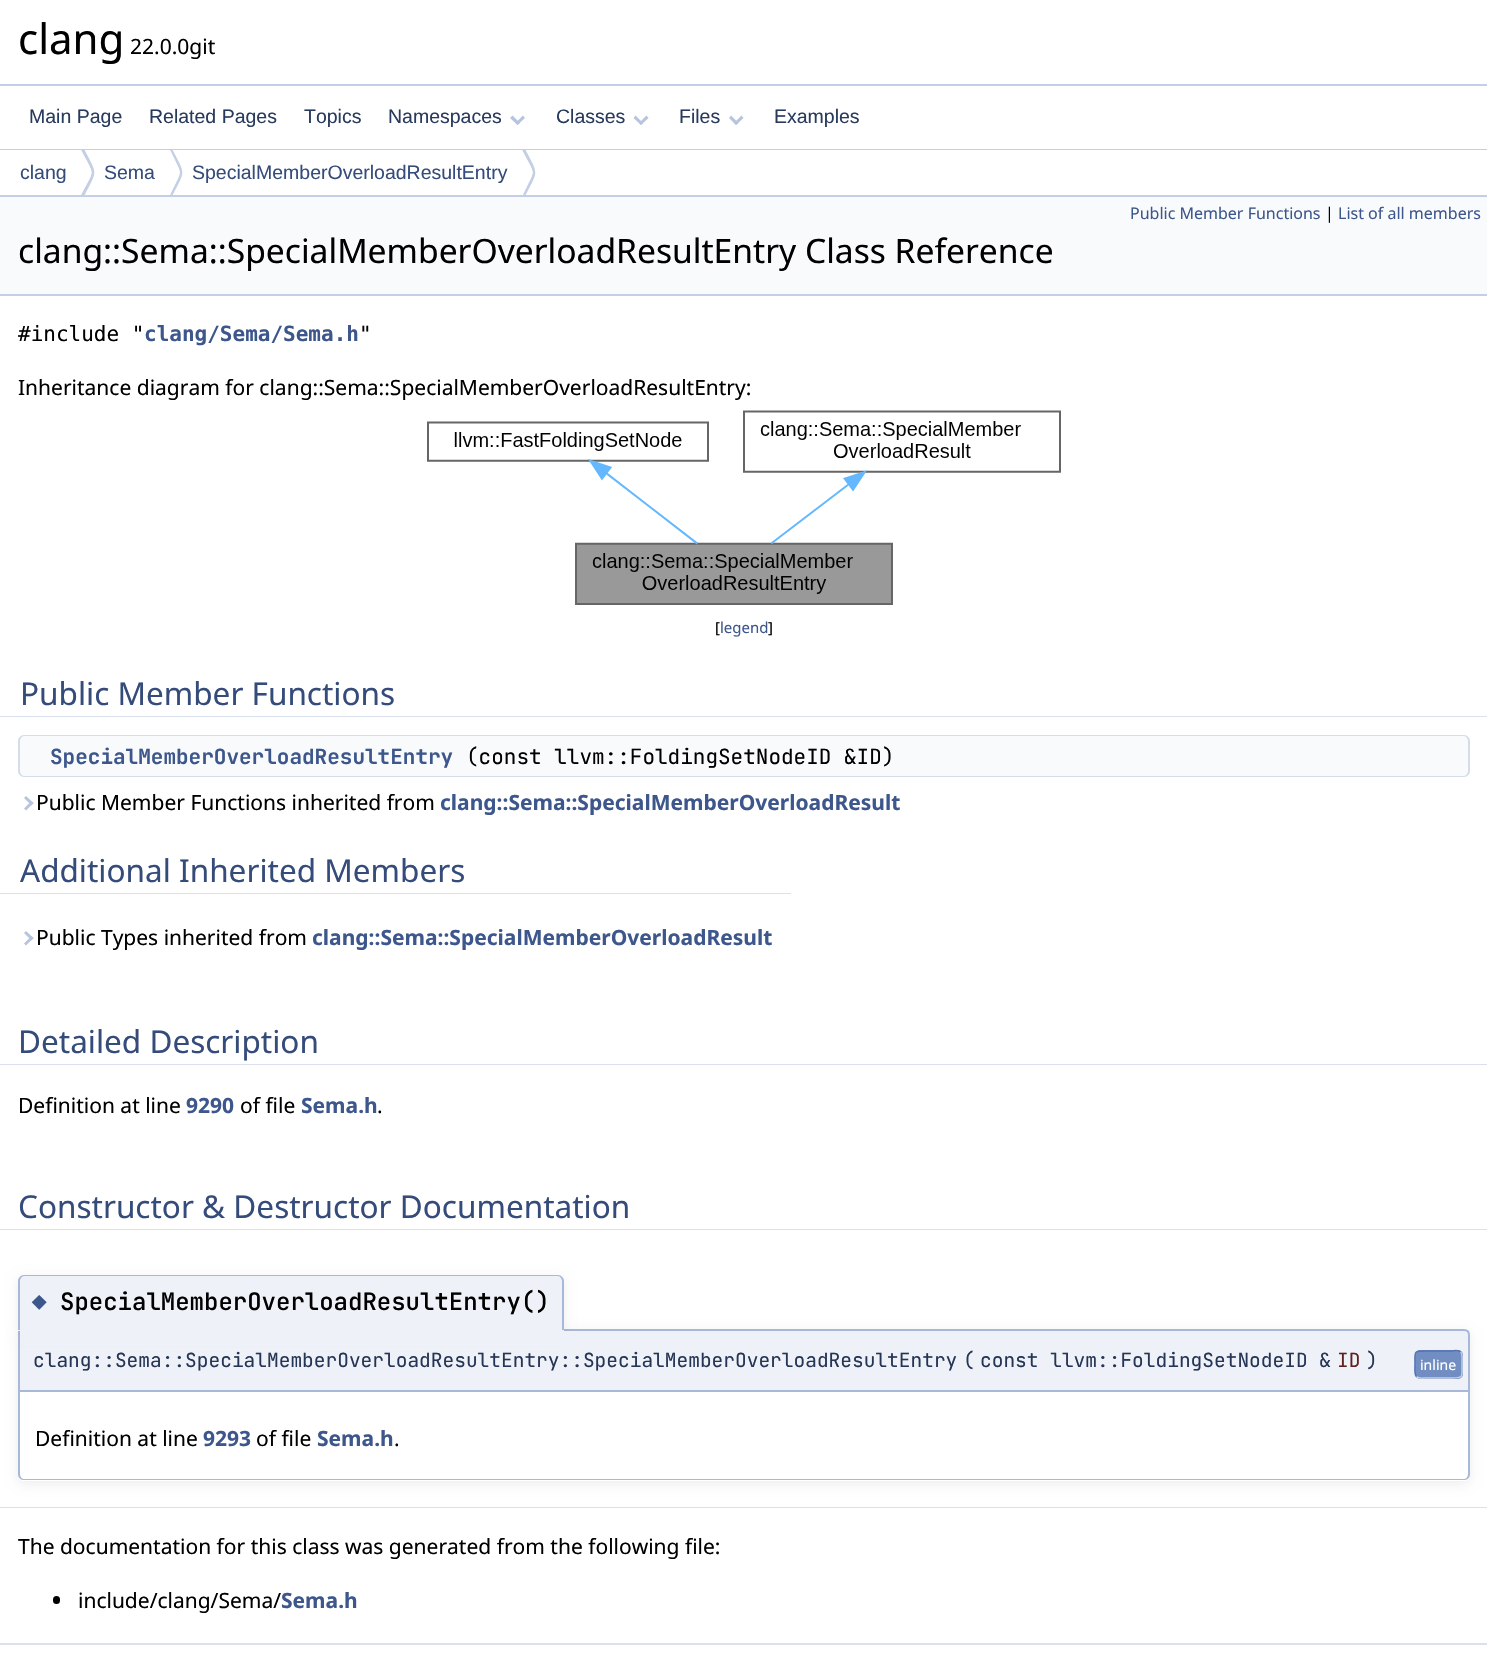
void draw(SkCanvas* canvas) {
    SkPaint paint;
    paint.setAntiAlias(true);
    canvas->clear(0xFFFFFFFF);
    paint.setColor(0xFFC4CFE5);
    canvas->drawRect(SkRect::MakeXYWH(0, 84, 1487, 2), paint);
    SkFont font1(fontMgr->matchFamilyStyle("Noto Sans", SkFontStyle::Normal()), 42);
    font1.setSubpixel(true);
    paint.setColor(0xFF000000);
    canvas->drawString("clang", 18, 54, font1, paint);
    SkFont font2(fontMgr->matchFamilyStyle("Noto Sans", SkFontStyle::Normal()), 21);
    font2.setSubpixel(true);
    canvas->drawString("22.0.0git", 130, 54, font2, paint);
    paint.setColor(0xFFC4CFE5);
    canvas->drawRect(SkRect::MakeXYWH(0, 149, 1487, 1), paint);
    SkFont font3(fontMgr->matchFamilyStyle("Liberation Sans", SkFontStyle::Normal()), 19.5f);
    font3.setSubpixel(true);
    paint.setColor(0xFF283A5D);
    canvas->drawString("Main Page", 29, 123, font3, paint);
    canvas->drawString("Related Pages", 149, 123, font3, paint);
    canvas->drawString("Topics", 304, 123, font3, paint);
    canvas->drawString("Namespaces", 388, 123, font3, paint);
    paint.setColor(0xFFB6C4DF);
    canvas->drawPath(SkPathBuilder().moveTo(523, 115.5f).lineTo(525, 118).lineTo(517.5f, 125).lineTo(515.5f, 123).close().detach(), paint);
    canvas->drawPath(SkPathBuilder().moveTo(512.5f, 115.5f).lineTo(520, 123).lineTo(517.5f, 125).lineTo(510, 118).close().detach(), paint);
    paint.setColor(0xFF283A5D);
    canvas->drawString("Classes", 556, 123, font3, paint);
    paint.setColor(0xFFB6C4DF);
    canvas->drawPath(SkPathBuilder().moveTo(646.5f, 115.5f).lineTo(648.5f, 118).lineTo(641, 125).lineTo(639, 123).close().detach(), paint);
    canvas->drawPath(SkPathBuilder().moveTo(635.5f, 115.5f).lineTo(643, 123).lineTo(641, 125).lineTo(633.5f, 118).close().detach(), paint);
    paint.setColor(0xFF283A5D);
    canvas->drawString("Files", 679, 123, font3, paint);
    paint.setColor(0xFFB6C4DF);
    canvas->drawPath(SkPathBuilder().moveTo(741.5f, 115.5f).lineTo(743.5f, 118).lineTo(736, 125).lineTo(734, 123).close().detach(), paint);
    canvas->drawPath(SkPathBuilder().moveTo(731, 115.5f).lineTo(738.5f, 123).lineTo(736, 125).lineTo(729, 118).close().detach(), paint);
    paint.setColor(0xFF283A5D);
    canvas->drawString("Examples", 774, 123, font3, paint);
    paint.setColor(0xFFC4CFE5);
    canvas->drawRect(SkRect::MakeXYWH(0, 195, 1487, 2), paint);
    paint.setColor(0xFF354C7B);
    canvas->drawString("clang", 20, 179, font3, paint);
    canvas->save();
    canvas->clipRect(SkRect::MakeXYWH(0, 150, 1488, 45));
    paint.setColor(0xFFC4CFE5);
    canvas->drawPath(SkPathBuilder(SkPathFillType::kEvenOdd).moveTo(83, 147).lineTo(81, 150).cubicTo(95, 177, 95, 168, 81, 195).lineTo(83, 198).cubicTo(98, 169, 98, 176, 83, 147).close().moveTo(76, 171).lineTo(77, 162).close().detach(), paint);
    canvas->restore();
    paint.setColor(0xFFFFFFFF);
    canvas->drawPath(SkPathBuilder().moveTo(81, 150).cubicTo(95, 178, 95, 167, 81, 195).cubicTo(75, 183, 75, 162, 81, 150).close().detach(), paint);
    paint.setColor(0xFF354C7B);
    canvas->drawString("Sema", 104, 179, font3, paint);
    canvas->save();
    canvas->clipRect(SkRect::MakeXYWH(0, 150, 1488, 45));
    paint.setColor(0xFFC4CFE5);
    canvas->drawPath(SkPathBuilder().moveTo(171, 147).lineTo(169, 152).lineTo(170, 150).cubicTo(183, 178, 183, 167, 170, 195).lineTo(171, 198).cubicTo(186, 169, 186, 176, 171, 147).close().detach(), paint);
    canvas->restore();
    paint.setColor(0xFFFFFFFF);
    canvas->drawPath(SkPathBuilder().moveTo(170, 150).cubicTo(183, 178, 183, 167, 170, 195).cubicTo(163, 183, 163, 162, 170, 150).close().detach(), paint);
    paint.setColor(0xFF354C7B);
    canvas->drawString("SpecialMemberOverloadResultEntry", 192, 179, font3, paint);
    canvas->save();
    canvas->clipRect(SkRect::MakeXYWH(0, 150, 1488, 45));
    paint.setColor(0xFFC4CFE5);
    canvas->drawPath(SkPathBuilder().moveTo(524, 147).lineTo(522, 150).cubicTo(536, 177, 536, 167, 523, 195).lineTo(524, 198).cubicTo(539, 169, 539, 176, 524, 147).close().detach(), paint);
    canvas->restore();
    paint.setColor(0xFFFFFFFF);
    canvas->drawPath(SkPathBuilder().moveTo(522, 150).cubicTo(536, 178, 536, 167, 522, 195).cubicTo(516, 183, 516, 162, 522, 150).close().detach(), paint);
    paint.setColor(0xFFF9FAFC);
    canvas->drawRect(SkRect::MakeXYWH(0, 197, 1487, 97), paint);
    paint.setColor(0xFFC4CFE5);
    canvas->drawRect(SkRect::MakeXYWH(0, 294, 1487, 2), paint);
    SkFont font4(fontMgr->matchFamilyStyle("Noto Sans", SkFontStyle::Normal()), 16);
    font4.setSubpixel(true);
    paint.setColor(0xFF3D578C);
    canvas->drawString("Public Member Functions", 1130, 219, font4, paint);
    paint.setColor(0xFF000000);
    canvas->drawString("|", 1325, 219, font4, paint);
    paint.setColor(0xFF3D578C);
    canvas->drawString("List of all members", 1338, 219, font4, paint);
    SkFont font5(fontMgr->matchFamilyStyle("Noto Sans", SkFontStyle::Normal()), 33.6f);
    font5.setSubpixel(true);
    paint.setColor(0xFF000000);
    canvas->drawString("clang::Sema::SpecialMemberOverloadResultEntry Class Reference", 18, 263, font5, paint);
    SkFont font6(fontMgr->matchFamilyStyle("DejaVu Sans Mono", SkFontStyle::Normal()), 21);
    font6.setSubpixel(true);
    canvas->drawString("#include \"", 18, 341, font6, paint);
    SkFont font7(fontMgr->matchFamilyStyle("DejaVu Sans Mono", SkFontStyle::Bold()), 21);
    font7.setSubpixel(true);
    paint.setColor(0xFF3D578C);
    canvas->drawString("clang/Sema/Sema.h", 144, 341, font7, paint);
    paint.setColor(0xFF000000);
    canvas->drawString("\"", 359, 341, font6, paint);
    canvas->drawString("Inheritance diagram for clang::Sema::SpecialMemberOverloadResultEntry:", 18, 395, font2, paint);
    canvas->drawImageRect(SkImages::DeferredFromEncodedData(SkData::MakeFromFileName("img1.png")), SkRect::MakeXYWH(427, 410, 634, 195), SkSamplingOptions());
    SkFont font8(fontMgr->matchFamilyStyle("Noto Sans", SkFontStyle::Normal()), 15);
    font8.setSubpixel(true);
    canvas->drawString("[", 715, 633, font8, paint);
    paint.setColor(0xFF3D578C);
    canvas->drawString("legend", 720, 633, font8, paint);
    paint.setColor(0xFF000000);
    canvas->drawString("]", 768, 633, font8, paint);
    paint.setColor(0xFFD9E0EE);
    canvas->drawPath(SkPathBuilder().moveTo(0, 666).lineTo(0, 717).lineTo(1449, 717).lineTo(1449, 716).lineTo(20, 716).lineTo(20, 666).close().detach(), paint);
    canvas->drawPath(SkPathBuilder().moveTo(39, 716).lineTo(39, 717).lineTo(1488, 717).lineTo(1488, 666).lineTo(1468, 666).lineTo(1468, 716).close().detach(), paint);
    paint.setColor(0xFFFFFFFF);
    canvas->drawPath(SkPathBuilder().moveTo(0, 665).lineTo(0, 716).lineTo(1449, 716).lineTo(20, 716).lineTo(20, 665).close().detach(), paint);
    canvas->drawPath(SkPathBuilder().moveTo(39, 716).lineTo(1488, 716).lineTo(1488, 665).lineTo(1468, 665).lineTo(1468, 716).close().detach(), paint);
    SkFont font9(fontMgr->matchFamilyStyle("Noto Sans", SkFontStyle::Normal()), 31.5f);
    font9.setSubpixel(true);
    paint.setColor(0xFF354C7B);
    canvas->drawString("Public Member Functions", 20, 705, font9, paint);
    paint.setColor(0xFFF9FAFC);
    canvas->drawPath(SkPathBuilder().moveTo(24, 735).lineTo(48, 735).lineTo(48, 777).lineTo(24, 777).cubicTo(20.5f, 777, 18, 774.5f, 18, 771).lineTo(18, 741).cubicTo(18, 737.5f, 20.5f, 735, 24, 735).close().detach(), paint);
    paint.setColor(0xFFD5DDEC);
    canvas->drawPath(SkPathBuilder(SkPathFillType::kEvenOdd).moveTo(24, 735).lineTo(48, 735).lineTo(48, 777).lineTo(24, 777).cubicTo(21, 777, 18, 774, 18, 771).lineTo(18, 741).cubicTo(18, 738, 21, 735, 24, 735).close().moveTo(24, 736).lineTo(48, 736).lineTo(48, 776).lineTo(24, 776).cubicTo(22, 776, 20, 773, 20, 771).lineTo(20, 741).cubicTo(20, 739, 22, 736, 24, 736).close().detach(), paint);
    paint.setColor(0xFFF9FAFC);
    canvas->drawPath(SkPathBuilder().moveTo(48, 735).lineTo(1464, 735).cubicTo(1467.5f, 735, 1470, 737.5f, 1470, 741).lineTo(1470, 771).cubicTo(1470, 774.5f, 1467.5f, 777, 1464, 777).lineTo(48, 777).close().detach(), paint);
    paint.setColor(0xFFD5DDEC);
    canvas->drawPath(SkPathBuilder(SkPathFillType::kEvenOdd).moveTo(48, 735).lineTo(1464, 735).cubicTo(1467, 735, 1470, 738, 1470, 741).lineTo(1470, 771).cubicTo(1470, 774, 1467, 777, 1464, 777).lineTo(48, 777).close().moveTo(48, 736).lineTo(1464, 736).cubicTo(1466, 736, 1468, 739, 1468, 741).lineTo(1468, 771).cubicTo(1468, 773, 1466, 776, 1464, 776).lineTo(48, 776).close().detach(), paint);
    SkFont font10(fontMgr->matchFamilyStyle("JetBrains Mono", SkFontStyle::Bold()), 21);
    font10.setSubpixel(true);
    paint.setColor(0xFF3D578C);
    canvas->drawString("SpecialMemberOverloadResultEntry", 50, 764, font10, paint);
    SkFont font11(fontMgr->matchFamilyStyle("JetBrains Mono", SkFontStyle::Normal()), 21);
    font11.setSubpixel(true);
    paint.setColor(0xFF000000);
    canvas->drawString("(const llvm::FoldingSetNodeID &ID)", 466, 764, font11, paint);
    paint.setColor(0xFFB6C4DF);
    canvas->drawPath(SkPathBuilder().moveTo(24, 798).lineTo(26, 796).lineTo(33.5f, 803).lineTo(31.5f, 805.5f).close().detach(), paint);
    canvas->drawPath(SkPathBuilder().moveTo(24, 808.5f).lineTo(31.5f, 801).lineTo(33.5f, 803).lineTo(26, 810.5f).close().detach(), paint);
    paint.setColor(0xFF000000);
    canvas->drawString("Public Member Functions inherited from", 36, 810, font2, paint);
    SkFont font12(fontMgr->matchFamilyStyle("Noto Sans", SkFontStyle::Bold()), 21);
    font12.setSubpixel(true);
    paint.setColor(0xFF3D578C);
    canvas->drawString("clang::Sema::SpecialMemberOverloadResult", 440, 810, font12, paint);
    paint.setColor(0xFFD9E0EE);
    canvas->drawPath(SkPathBuilder().moveTo(0, 843).lineTo(0, 894).lineTo(752, 894).lineTo(752, 892).lineTo(20, 892).lineTo(20, 843).close().detach(), paint);
    canvas->drawPath(SkPathBuilder().moveTo(39, 892).lineTo(39, 894).lineTo(791, 894).lineTo(791, 843).lineTo(771, 843).lineTo(771, 892).close().detach(), paint);
    paint.setColor(0xFFFFFFFF);
    canvas->drawPath(SkPathBuilder().moveTo(0, 842).lineTo(0, 893).lineTo(752, 893).lineTo(752, 892).lineTo(20, 892).lineTo(20, 842).close().detach(), paint);
    canvas->drawPath(SkPathBuilder().moveTo(39, 892).lineTo(39, 893).lineTo(791, 893).lineTo(791, 842).lineTo(771, 842).lineTo(771, 892).close().detach(), paint);
    paint.setColor(0xFF354C7B);
    canvas->drawString("Additional Inherited Members", 20, 882, font9, paint);
    paint.setColor(0xFFB6C4DF);
    canvas->drawPath(SkPathBuilder().moveTo(24, 933).lineTo(26, 931).lineTo(33.5f, 938).lineTo(31.5f, 940.5f).close().detach(), paint);
    canvas->drawPath(SkPathBuilder().moveTo(24, 943.5f).lineTo(31.5f, 936).lineTo(33.5f, 938).lineTo(26, 945.5f).close().detach(), paint);
    paint.setColor(0xFF000000);
    canvas->drawString("Public Types inherited from", 36, 945, font2, paint);
    paint.setColor(0xFF3D578C);
    canvas->drawString("clang::Sema::SpecialMemberOverloadResult", 312, 945, font12, paint);
    paint.setColor(0xFFD9E0EE);
    canvas->drawPath(SkPathBuilder().moveTo(0, 1014).lineTo(0, 1065).lineTo(1452, 1065).lineTo(1452, 1064).lineTo(18, 1064).lineTo(18, 1014).close().detach(), paint);
    canvas->drawPath(SkPathBuilder().moveTo(36, 1064).lineTo(36, 1065).lineTo(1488, 1065).lineTo(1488, 1014).lineTo(1470, 1014).lineTo(1470, 1064).close().detach(), paint);
    paint.setColor(0xFFFFFFFF);
    canvas->drawPath(SkPathBuilder().moveTo(0, 1013).lineTo(0, 1064).lineTo(1452, 1064).lineTo(18, 1064).lineTo(18, 1013).close().detach(), paint);
    canvas->drawPath(SkPathBuilder().moveTo(36, 1064).lineTo(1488, 1064).lineTo(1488, 1013).lineTo(1470, 1013).lineTo(1470, 1064).close().detach(), paint);
    paint.setColor(0xFF354C7B);
    canvas->drawString("Detailed Description", 18, 1053, font9, paint);
    paint.setColor(0xFF000000);
    canvas->drawString("Definition at line", 18, 1113, font2, paint);
    paint.setColor(0xFF3D578C);
    canvas->drawString("9290", 186, 1113, font12, paint);
    paint.setColor(0xFF000000);
    canvas->drawString("of file", 240, 1113, font2, paint);
    paint.setColor(0xFF3D578C);
    canvas->drawString("Sema.h", 301, 1113, font12, paint);
    paint.setColor(0xFF000000);
    canvas->drawString(".", 377, 1113, font2, paint);
    paint.setColor(0xFFD9E0EE);
    canvas->drawPath(SkPathBuilder().moveTo(0, 1179).lineTo(0, 1230).lineTo(1452, 1230).lineTo(1452, 1228).lineTo(18, 1228).lineTo(18, 1179).close().detach(), paint);
    canvas->drawPath(SkPathBuilder().moveTo(36, 1228).lineTo(36, 1230).lineTo(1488, 1230).lineTo(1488, 1179).lineTo(1470, 1179).lineTo(1470, 1228).close().detach(), paint);
    paint.setColor(0xFFFFFFFF);
    canvas->drawPath(SkPathBuilder().moveTo(0, 1178).lineTo(0, 1229).lineTo(1452, 1229).lineTo(1452, 1228).lineTo(18, 1228).lineTo(18, 1178).close().detach(), paint);
    canvas->drawPath(SkPathBuilder().moveTo(36, 1228).lineTo(36, 1229).lineTo(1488, 1229).lineTo(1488, 1178).lineTo(1470, 1178).lineTo(1470, 1228).close().detach(), paint);
    paint.setColor(0xFF354C7B);
    canvas->drawString("Constructor & Destructor Documentation", 18, 1218, font9, paint);
    canvas->save();
    canvas->clipPath(SkPathBuilder(SkPathFillType::kEvenOdd).moveTo(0, 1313).lineTo(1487, 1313).lineTo(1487, 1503).lineTo(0, 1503).close().moveTo(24, 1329).lineTo(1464, 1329).cubicTo(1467.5f, 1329, 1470, 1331.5f, 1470, 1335).lineTo(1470, 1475).cubicTo(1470, 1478.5f, 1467.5f, 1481, 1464, 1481).lineTo(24, 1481).cubicTo(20.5f, 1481, 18, 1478.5f, 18, 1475).lineTo(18, 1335).cubicTo(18, 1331.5f, 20.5f, 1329, 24, 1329).close().detach(), true);
    paint.setColor(0x12000000);
    paint.setMaskFilter(SkMaskFilter::MakeBlur(kNormal_SkBlurStyle, 6));
    canvas->drawRoundRect(SkRect::MakeXYWH(18, 1332, 1452, 152), 6, 6, paint);
    paint.setMaskFilter(nullptr);
    canvas->restore();
    paint.setColor(0xFFEEF1F7);
    canvas->drawPath(SkPathBuilder().moveTo(19, 1330).lineTo(1464, 1330).cubicTo(1467, 1330, 1469, 1332, 1469, 1335).lineTo(1469, 1391).lineTo(19, 1391).close().detach(), paint);
    paint.setStyle(SkPaint::kStroke_Style);
    paint.setStrokeWidth(2);
    paint.setColor(0xFFA8B8D9);
    canvas->drawPath(SkPathBuilder().moveTo(19, 1330).lineTo(1464, 1330).cubicTo(1467, 1330, 1469, 1332, 1469, 1335).lineTo(1469, 1391).lineTo(19, 1391).close().detach(), paint);
    paint.setStyle(SkPaint::kFill_Style);
    paint.setColor(0x12000000);
    paint.setMaskFilter(SkMaskFilter::MakeBlur(kNormal_SkBlurStyle, 6));
    canvas->drawRoundRect(SkRect::MakeXYWH(18, 1278, 546, 56), 6, 6, paint);
    paint.setMaskFilter(nullptr);
    paint.setColor(0xFFEEF1F7);
    canvas->drawPath(SkPathBuilder().moveTo(24, 1275).lineTo(558, 1275).cubicTo(561.5f, 1275, 564, 1277.5f, 564, 1281).lineTo(564, 1331).lineTo(18, 1331).lineTo(18, 1281).cubicTo(18, 1277.5f, 20.5f, 1275, 24, 1275).close().detach(), paint);
    paint.setColor(0xFFA8B8D9);
    canvas->drawPath(SkPathBuilder(SkPathFillType::kEvenOdd).moveTo(24, 1275).lineTo(558, 1275).cubicTo(561, 1275, 564, 1278, 564, 1281).lineTo(564, 1330).lineTo(18, 1330).lineTo(18, 1281).cubicTo(18, 1278, 21, 1275, 24, 1275).close().moveTo(24, 1276).lineTo(558, 1276).cubicTo(560, 1276, 562, 1279, 562, 1281).lineTo(562, 1330).lineTo(20, 1330).lineTo(20, 1281).cubicTo(20, 1279, 22, 1276, 24, 1276).close().detach(), paint);
    SkFont font13(fontMgr->matchFamilyStyle("JetBrains Mono", SkFontStyle::Normal()), 24);
    font13.setSubpixel(true);
    paint.setColor(0xFF3D578C);
    canvas->drawString("◆", 32, 1311, font13, paint);
    SkFont font14(fontMgr->matchFamilyStyle("JetBrains Mono", SkFontStyle(500, SkFontStyle::kNormal_Width, SkFontStyle::kUpright_Slant)), 24);
    font14.setSubpixel(true);
    paint.setColor(0xFF000000);
    canvas->drawString("SpecialMemberOverloadResultEntry()", 60, 1310, font14, paint);
    paint.setColor(0xFFEEF1F7);
    canvas->drawPath(SkPathBuilder().moveTo(20, 1331).lineTo(575, 1331).cubicTo(580, 1331, 584, 1335, 584, 1340).lineTo(584, 1346).lineTo(20, 1346).close().detach(), paint);
    SkFont font15(fontMgr->matchFamilyStyle("JetBrains Mono", SkFontStyle::Normal()), 19.5f);
    font15.setSubpixel(true);
    paint.setColor(0xFF253555);
    canvas->drawString("clang::Sema::SpecialMemberOverloadResultEntry::SpecialMemberOverloadResultEntry", 33, 1367, font15, paint);
    canvas->drawString("(", 963, 1367, font15, paint);
    canvas->drawString("const llvm::FoldingSetNodeID &", 980, 1367, font15, paint);
    paint.setColor(0xFF602020);
    canvas->drawString("ID", 1337, 1367, font15, paint);
    paint.setColor(0xFF253555);
    canvas->drawString(")", 1366, 1367, font15, paint);
    paint.setColor(0xFF728DC1);
    canvas->drawRoundRect(SkRect::MakeXYWH(1415, 1350, 48, 29), 5, 5, paint);
    paint.setStyle(SkPaint::kStroke_Style);
    paint.setStrokeWidth(1.5f);
    paint.setColor(0xFFC4CFE5);
    canvas->drawPath(SkPathBuilder().moveTo(1460.5f, 1352).cubicTo(1463, 1354, 1462, 1361.5f, 1462, 1364).cubicTo(1462, 1377, 1464, 1378, 1451.5f, 1378).lineTo(1425.5f, 1378).cubicTo(1423.5f, 1378, 1418.5f, 1379, 1416.5f, 1376.5f).detach(), paint);
    paint.setColor(0xFF5373B4);
    canvas->drawPath(SkPathBuilder().moveTo(1416.5f, 1376.5f).cubicTo(1414, 1374.5f, 1415, 1367, 1415, 1364).cubicTo(1415, 1351.5f, 1413, 1351, 1425.5f, 1351).lineTo(1451.5f, 1351).cubicTo(1453.5f, 1351, 1458.5f, 1349.5f, 1460.5f, 1352).detach(), paint);
    SkFont font16(fontMgr->matchFamilyStyle("Noto Sans", SkFontStyle::Normal()), 14);
    font16.setSubpixel(true);
    paint.setStyle(SkPaint::kFill_Style);
    paint.setColor(0xFFFFFFFF);
    canvas->drawString("inline", 1420, 1370, font16, paint);
    paint.setColor(0xFFA8B8D9);
    canvas->drawPath(SkPathBuilder(SkPathFillType::kEvenOdd).moveTo(18, 1392).lineTo(1470, 1392).lineTo(1470, 1474).cubicTo(1470, 1478, 1467, 1480, 1464, 1480).lineTo(24, 1480).cubicTo(21, 1480, 18, 1478, 18, 1474).close().moveTo(20, 1392).lineTo(1468, 1392).lineTo(1468, 1474).cubicTo(1468, 1477, 1466, 1479, 1464, 1479).lineTo(24, 1479).cubicTo(22, 1479, 20, 1477, 20, 1474).close().detach(), paint);
    paint.setColor(0xFF000000);
    canvas->drawString("Definition at line", 35, 1446, font2, paint);
    paint.setColor(0xFF3D578C);
    canvas->drawString("9293", 203, 1446, font12, paint);
    paint.setColor(0xFF000000);
    canvas->drawString("of file", 256, 1446, font2, paint);
    paint.setColor(0xFF3D578C);
    canvas->drawString("Sema.h", 317, 1446, font12, paint);
    paint.setColor(0xFF000000);
    canvas->drawString(".", 394, 1446, font2, paint);
    paint.setColor(0xFFD9E0EE);
    canvas->drawRect(SkRect::MakeXYWH(0, 1507, 1487, 1), paint);
    paint.setColor(0xFF000000);
    canvas->drawString("The documentation for this class was generated from the following file:", 18, 1554, font2, paint);
    canvas->drawRoundRect(SkRect::MakeXYWH(53, 1596, 7, 8), 3.5f, 3.5f, paint);
    canvas->drawString("include/clang/Sema/", 78, 1608, font2, paint);
    paint.setColor(0xFF3D578C);
    canvas->drawString("Sema.h", 281, 1608, font12, paint);
    paint.setColor(0xFFD9E0EE);
    canvas->drawRect(SkRect::MakeXYWH(0, 1643, 1487, 2), paint);
}
